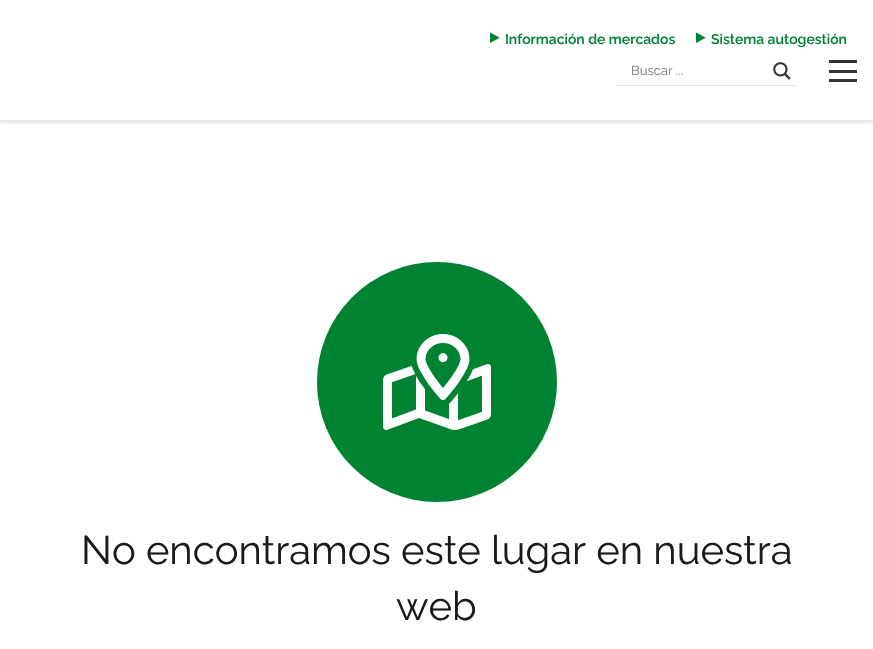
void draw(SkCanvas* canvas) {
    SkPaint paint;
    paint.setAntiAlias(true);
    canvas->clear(0xFFFFFFFF);
    canvas->save();
    canvas->clipRect(SkRect::MakeXYWH(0, 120, 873, 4));
    paint.setColor(0x1A000000);
    paint.setMaskFilter(SkMaskFilter::MakeBlur(kNormal_SkBlurStyle, 1.5f));
    canvas->drawRect(SkRect::MakeXYWH(0, 3, 873, 120), paint);
    paint.setMaskFilter(nullptr);
    canvas->restore();
    canvas->drawImageRect(SkImages::DeferredFromEncodedData(SkData::MakeFromFileName("img1.png")), SkRect::MakeXYWH(490, 32, 10, 11), SkSamplingOptions());
    SkFont font1(fontMgr->matchFamilyStyle("Raleway", SkFontStyle(600, SkFontStyle::kNormal_Width, SkFontStyle::kUpright_Slant)), 14);
    font1.setSubpixel(true);
    paint.setColor(0xFF008332);
    canvas->drawString("Información de mercados", 505, 44, font1, paint);
    canvas->drawImageRect(SkImages::DeferredFromEncodedData(SkData::MakeFromFileName("img1.png")), SkRect::MakeXYWH(696, 32, 10, 11), SkSamplingOptions());
    canvas->drawString("Sistema autogestión", 711, 44, font1, paint);
    paint.setColor(0xFFE4E4E4);
    canvas->drawRect(SkRect::MakeXYWH(616, 85, 180, 1), paint);
    SkFont font2(fontMgr->matchFamilyStyle("Raleway", SkFontStyle::Normal()), 13);
    font2.setSubpixel(true);
    paint.setColor(0xFF7D7D7D);
    canvas->drawString("Buscar ...", 631, 75, font2, paint);
    canvas->drawImageRect(SkImages::DeferredFromEncodedData(SkData::MakeFromFileName("img2.png")), SkRect::MakeXYWH(773, 62, 18, 18), SkSamplingOptions());
    paint.setColor(0xFF333333);
    canvas->drawRect(SkRect::MakeXYWH(829, 70, 28, 3), paint);
    canvas->drawRect(SkRect::MakeXYWH(829, 60, 28, 3), paint);
    canvas->drawRect(SkRect::MakeXYWH(829, 79, 28, 3), paint);
    paint.setColor(0xFF008233);
    canvas->drawCircle(437, 382, 120, paint);
    canvas->drawImageRect(SkImages::DeferredFromEncodedData(SkData::MakeFromFileName("img3.png")), SkRect::MakeXYWH(383, 334, 108, 96), SkSamplingOptions());
    SkFont font3(fontMgr->matchFamilyStyle("Raleway", SkFontStyle::Normal()), 40);
    font3.setSubpixel(true);
    paint.setColor(0xFF1A1A1A);
    canvas->drawString("No encontramos este lugar en nuestra", 81, 564, font3, paint);
    canvas->drawString("web", 396, 620, font3, paint);
}
